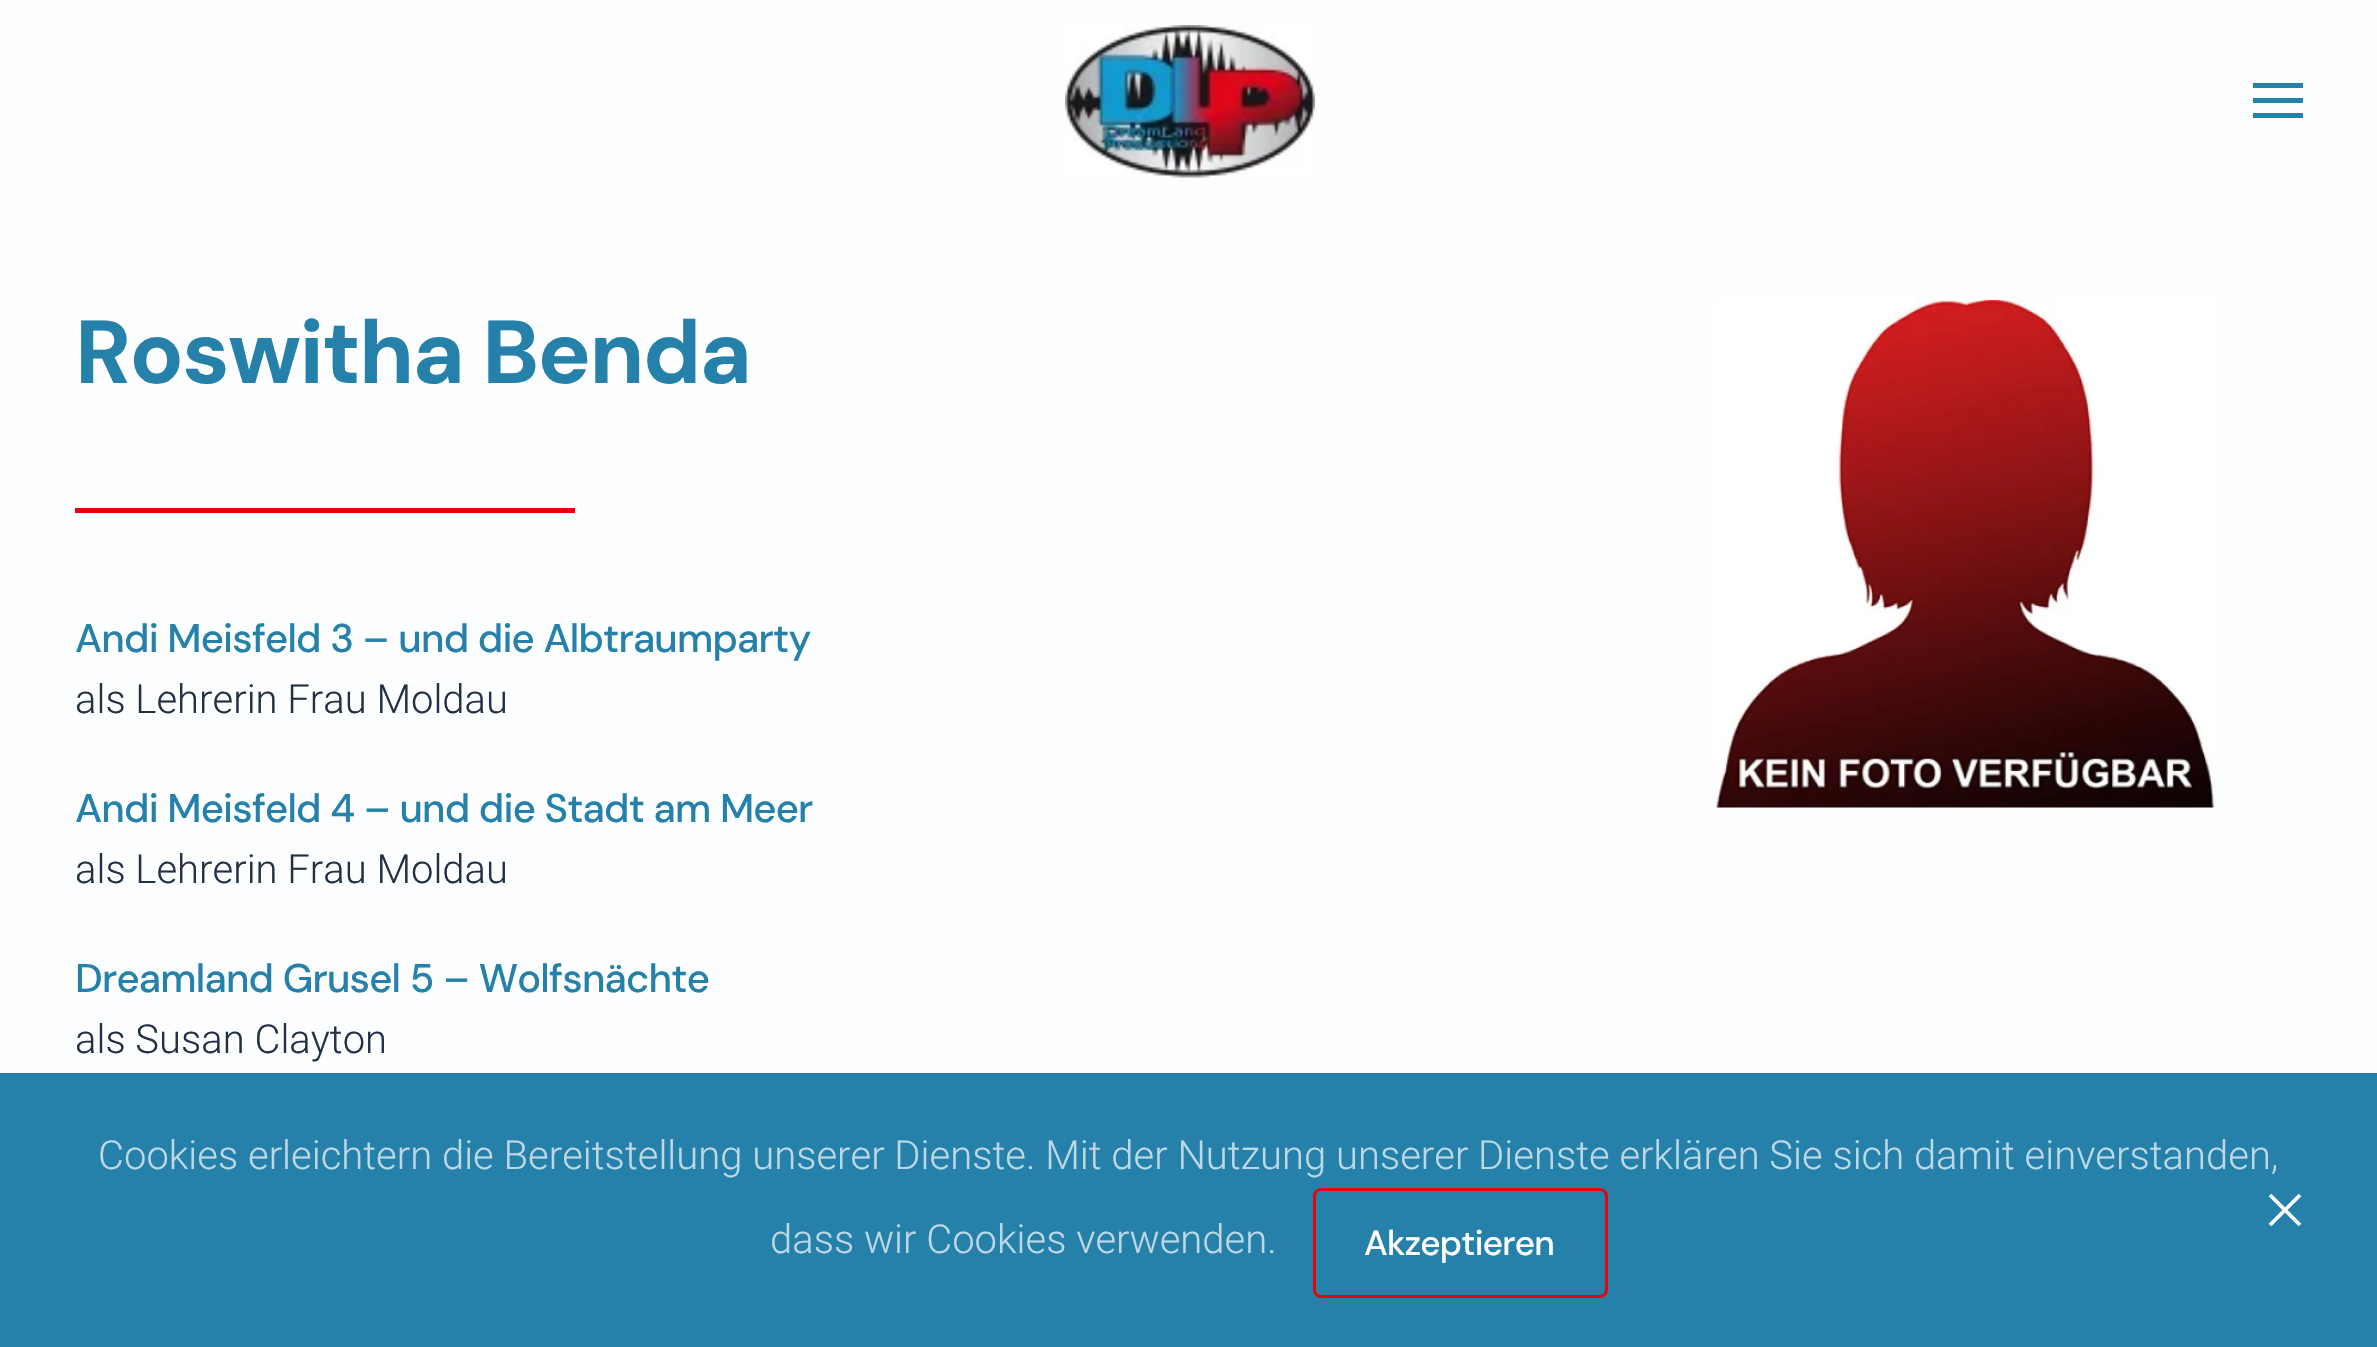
void draw(SkCanvas* canvas) {
    SkPaint paint;
    paint.setAntiAlias(true);
    auto spacedText = [&](const char* s, float x, float y, const SkFont& font, const SkPaint& ink, float letter, float word) {
        std::vector<SkGlyphID> glyphs(font.countText(s, strlen(s), SkTextEncoding::kUTF8));
        std::vector<float> xs(glyphs.size());
        font.textToGlyphs(s, strlen(s), SkTextEncoding::kUTF8, glyphs);
        font.getXPos(glyphs, xs, x);
        float extra = 0;
        for (size_t i = 0; i < glyphs.size(); i++) {
            xs[i] += extra;
            extra += letter + word * (glyphs[i] == font.unicharToGlyph(' '));
        }
        canvas->drawTextBlob(SkTextBlob::MakeFromPosHGlyphs(glyphs, xs, y, font), 0, 0, ink);
    };
    canvas->clear(0xFFFDFEFF);
    canvas->drawImageRect(SkImages::DeferredFromEncodedData(SkData::MakeFromFileName("img1.png")), SkRect::MakeXYWH(1065, 25, 250, 153), SkSamplingOptions());
    paint.setColor(0xFF2581AA);
    canvas->drawRect(SkRect::MakeXYWH(2253, 83, 50, 5), paint);
    canvas->drawRect(SkRect::MakeXYWH(2253, 98, 50, 5), paint);
    canvas->drawRect(SkRect::MakeXYWH(2253, 113, 50, 5), paint);
    SkFont font1(fontMgr->matchFamilyStyle("DM Sans", SkFontStyle::Bold()), 89.25f);
    font1.setSubpixel(true);
    spacedText("Roswitha Benda", 75, 383, font1, paint, -1.75f, 0);
    paint.setColor(0xFFE2050C);
    canvas->drawRect(SkRect::MakeXYWH(75, 508, 500, 5), paint);
    SkFont font2(fontMgr->matchFamilyStyle("DM Sans", SkFontStyle(500, SkFontStyle::kNormal_Width, SkFontStyle::kUpright_Slant)), 40);
    font2.setSubpixel(true);
    paint.setColor(0xFF2581AA);
    spacedText("Andi Meisfeld 3 – und die Albtraumparty", 75, 652, font2, paint, -0.8f, 0);
    SkFont font3(fontMgr->matchFamilyStyle("Roboto", SkFontStyle(300, SkFontStyle::kNormal_Width, SkFontStyle::kUpright_Slant)), 40);
    font3.setSubpixel(true);
    paint.setColor(0xFF223046);
    canvas->drawString("als Lehrerin Frau Moldau", 75, 713, font3, paint);
    paint.setColor(0xFF2581AA);
    spacedText("Andi Meisfeld 4 – und die Stadt am Meer", 75, 822, font2, paint, -0.8f, 0);
    paint.setColor(0xFF223046);
    canvas->drawString("als Lehrerin Frau Moldau", 75, 883, font3, paint);
    paint.setColor(0xFF2581AA);
    spacedText("Dreamland Grusel 5 – Wolfsnächte", 75, 992, font2, paint, -0.8f, 0);
    paint.setColor(0xFF223046);
    canvas->drawString("als Susan Clayton", 75, 1053, font3, paint);
    canvas->drawImageRect(SkImages::DeferredFromEncodedData(SkData::MakeFromFileName("img2.png")), SkRect::MakeXYWH(1716, 300, 500, 508), SkSamplingOptions());
    paint.setColor(0xFF2581AA);
    canvas->drawRect(SkRect::MakeXYWH(0, 1073, 2377, 274), paint);
    paint.setColor(0xFFBED9E6);
    canvas->drawString("Cookies erleichtern die Bereitstellung unserer Dienste. Mit der Nutzung unserer Dienste erklären Sie sich damit einverstanden,", 98, 1169, font3, paint);
    paint.setStyle(SkPaint::kStroke_Style);
    paint.setStrokeWidth(3.8f);
    paint.setColor(0xFFFFFFFF);
    canvas->drawPath(SkPathBuilder().moveTo(2270, 1195).lineTo(2300, 1225).moveTo(2300, 1195).lineTo(2270, 1225).detach(), paint);
    paint.setStyle(SkPaint::kFill_Style);
    paint.setColor(0xFFBED9E6);
    canvas->drawString("dass wir Cookies verwenden.", 770, 1253, font3, paint);
    paint.setStyle(SkPaint::kStroke_Style);
    paint.setStrokeWidth(3);
    paint.setColor(0xFFE2050C);
    canvas->drawRoundRect(SkRect::MakeXYWH(1314.5f, 1189.5f, 292, 107), 6.5f, 6.5f, paint);
    SkFont font4(fontMgr->matchFamilyStyle("DM Sans", SkFontStyle(500, SkFontStyle::kNormal_Width, SkFontStyle::kUpright_Slant)), 35);
    font4.setSubpixel(true);
    paint.setStyle(SkPaint::kFill_Style);
    paint.setColor(0xFFFFFFFF);
    spacedText("Akzeptieren", 1364, 1255, font4, paint, -0.75f, 0);
}
